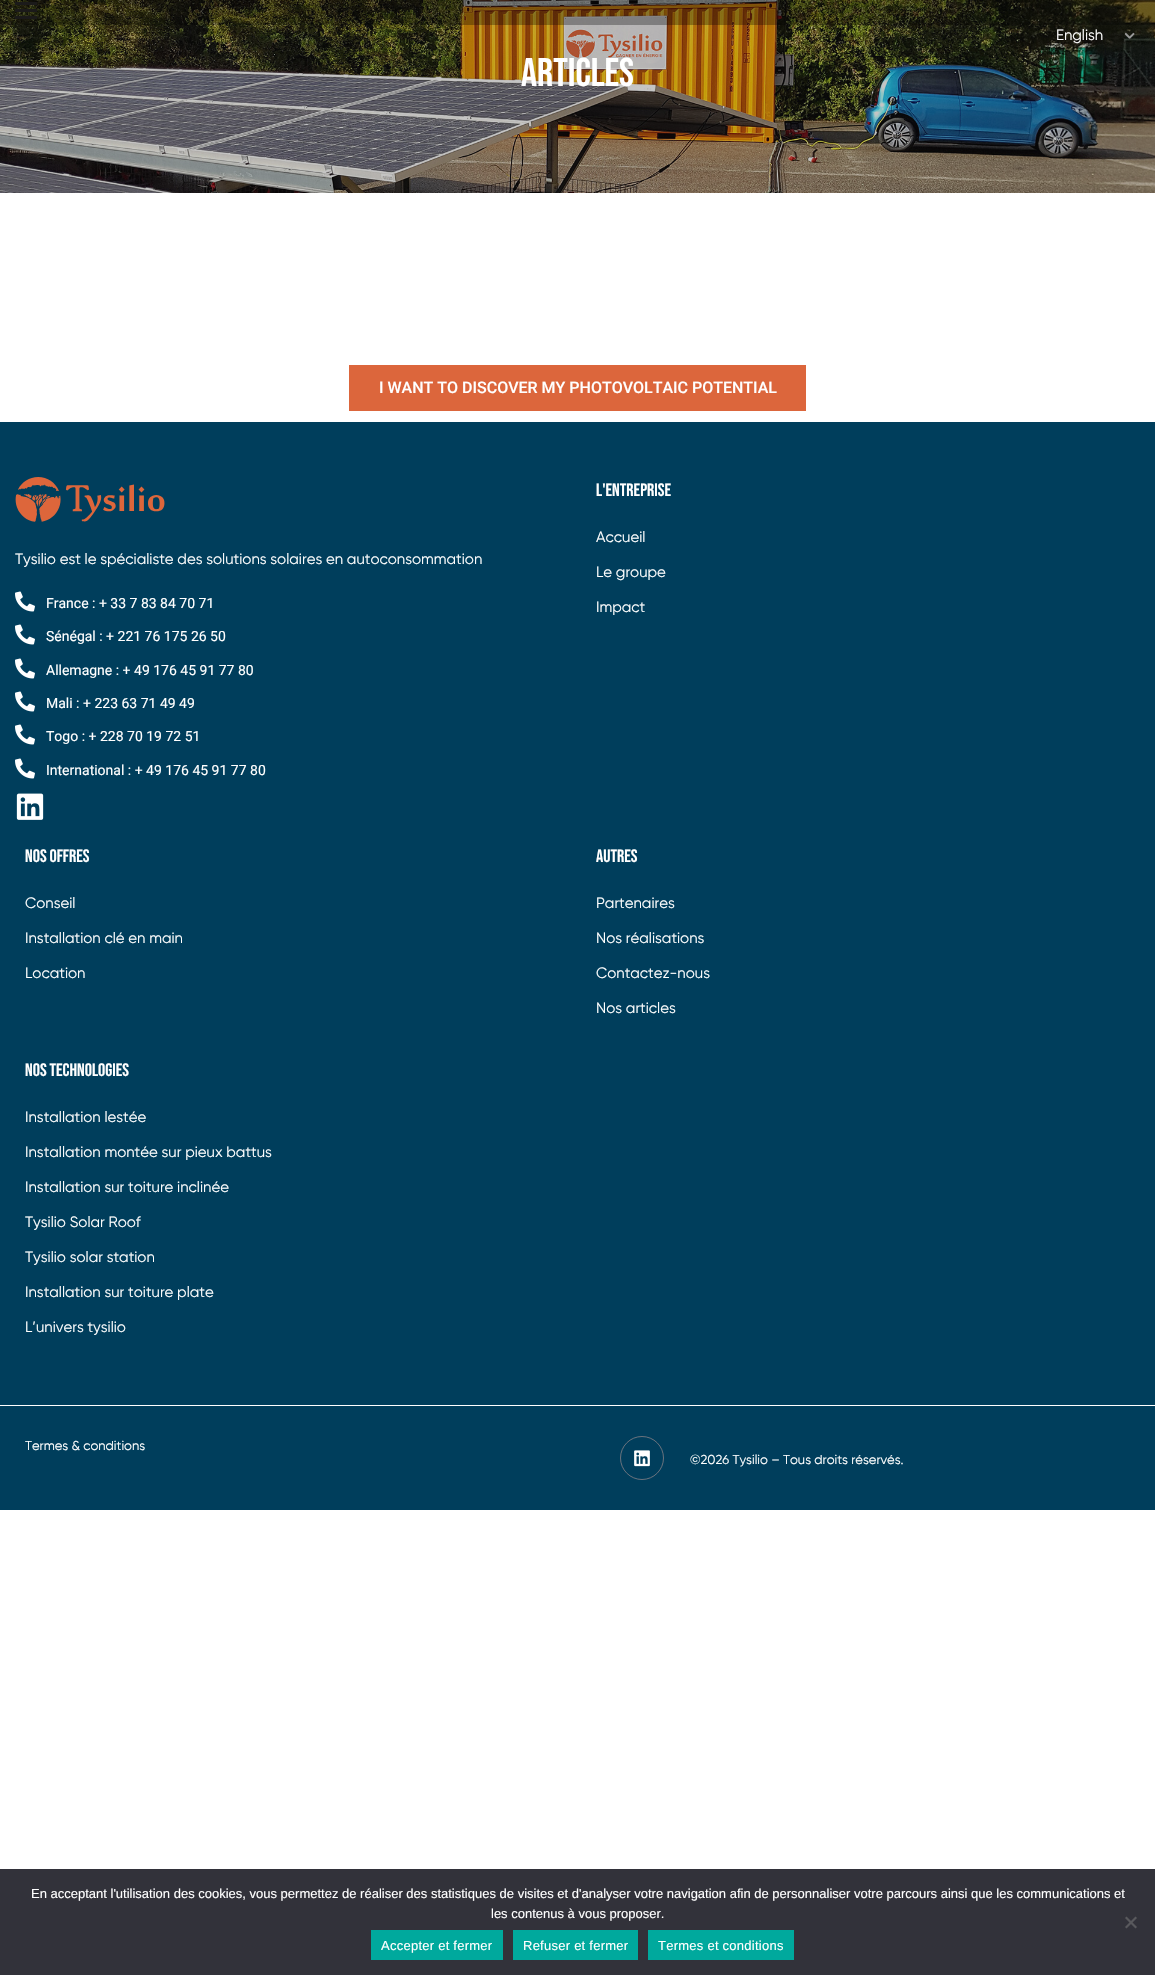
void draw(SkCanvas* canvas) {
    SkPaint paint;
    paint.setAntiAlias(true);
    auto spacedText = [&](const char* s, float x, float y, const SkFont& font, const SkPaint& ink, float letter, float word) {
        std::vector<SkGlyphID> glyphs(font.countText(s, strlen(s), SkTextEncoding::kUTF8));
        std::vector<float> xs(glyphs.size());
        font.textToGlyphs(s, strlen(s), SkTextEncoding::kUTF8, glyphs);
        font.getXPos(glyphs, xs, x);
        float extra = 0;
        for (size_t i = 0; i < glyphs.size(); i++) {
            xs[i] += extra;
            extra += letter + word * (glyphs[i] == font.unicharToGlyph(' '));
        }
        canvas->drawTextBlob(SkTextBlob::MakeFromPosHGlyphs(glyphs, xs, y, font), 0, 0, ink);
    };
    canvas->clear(0xFFFFFFFF);
    canvas->drawImageRect(SkImages::DeferredFromEncodedData(SkData::MakeFromFileName("img2.png")), SkRect::MakeXYWH(0, 0, 1155, 193), SkSamplingOptions());
    paint.setColor(0x4D000000);
    canvas->drawRect(SkRect::MakeXYWH(0, 0, 1155, 25), paint);
    paint.setColor(0xFF1B1A1A);
    canvas->drawRect(SkRect::MakeXYWH(15, 2, 22, 3), paint);
    canvas->drawRect(SkRect::MakeXYWH(15, 9, 22, 3), paint);
    canvas->drawRect(SkRect::MakeXYWH(15, 16, 22, 3), paint);
    canvas->drawImageRect(SkImages::DeferredFromEncodedData(SkData::MakeFromFileName("img1.png")), SkRect::MakeXYWH(1124, 32, 11, 7), SkSamplingOptions());
    SkFont font1(fontMgr->matchFamilyStyle("Gilroy", SkFontStyle::Normal()), 15);
    font1.setSubpixel(true);
    paint.setColor(0xFFFFFFFF);
    canvas->drawString("English", 1056, 40, font1, paint);
    SkFont font2(fontMgr->matchFamilyStyle("Bebas Neue", SkFontStyle::Normal()), 40);
    font2.setSubpixel(true);
    canvas->drawString("Articles", 521, 86, font2, paint);
    paint.setColor(0xFFDC663C);
    canvas->drawRect(SkRect::MakeXYWH(349, 365, 457, 46), paint);
    SkFont font3(fontMgr->matchFamilyStyle("Roboto", SkFontStyle(500, SkFontStyle::kNormal_Width, SkFontStyle::kUpright_Slant)), 16);
    font3.setSubpixel(true);
    paint.setColor(0xFFFFFFFF);
    canvas->drawString("I WANT TO DISCOVER MY PHOTOVOLTAIC POTENTIAL", 379, 393, font3, paint);
    paint.setColor(0xFF003E5C);
    canvas->drawRect(SkRect::MakeXYWH(0, 422, 1155, 983), paint);
    canvas->drawImageRect(SkImages::DeferredFromEncodedData(SkData::MakeFromFileName("img3.png")), SkRect::MakeXYWH(15, 477, 150, 45), SkSamplingOptions());
    paint.setColor(0xFFFFFFFF);
    canvas->drawString("Tysilio est le spécialiste des solutions solaires en autoconsommation", 15, 564, font1, paint);
    canvas->drawImageRect(SkImages::DeferredFromEncodedData(SkData::MakeFromFileName("img4.png")), SkRect::MakeXYWH(15, 591, 20, 21), SkSamplingOptions());
    SkFont font4(fontMgr->matchFamilyStyle("Roboto", SkFontStyle::Normal()), 14);
    font4.setSubpixel(true);
    canvas->drawString("France : + 33 7 83 84 70 71", 46, 608, font4, paint);
    canvas->drawImageRect(SkImages::DeferredFromEncodedData(SkData::MakeFromFileName("img4.png")), SkRect::MakeXYWH(15, 624, 20, 21), SkSamplingOptions());
    canvas->drawString("Sénégal : + 221 76 175 26 50", 46, 641, font4, paint);
    canvas->drawImageRect(SkImages::DeferredFromEncodedData(SkData::MakeFromFileName("img4.png")), SkRect::MakeXYWH(15, 658, 20, 21), SkSamplingOptions());
    canvas->drawString("Allemagne : + 49 176 45 91 77 80", 46, 675, font4, paint);
    canvas->drawImageRect(SkImages::DeferredFromEncodedData(SkData::MakeFromFileName("img4.png")), SkRect::MakeXYWH(15, 691, 20, 21), SkSamplingOptions());
    canvas->drawString("Mali : + 223 63 71 49 49", 46, 708, font4, paint);
    canvas->drawImageRect(SkImages::DeferredFromEncodedData(SkData::MakeFromFileName("img4.png")), SkRect::MakeXYWH(15, 724, 20, 21), SkSamplingOptions());
    canvas->drawString("Togo : + 228 70 19 72 51", 46, 741, font4, paint);
    canvas->drawImageRect(SkImages::DeferredFromEncodedData(SkData::MakeFromFileName("img4.png")), SkRect::MakeXYWH(15, 758, 20, 21), SkSamplingOptions());
    canvas->drawString("International : + 49 176 45 91 77 80", 46, 775, font4, paint);
    canvas->drawImageRect(SkImages::DeferredFromEncodedData(SkData::MakeFromFileName("img5.png")), SkRect::MakeXYWH(16, 793, 28, 27), SkSamplingOptions());
    SkFont font5(fontMgr->matchFamilyStyle("Bebas Neue", SkFontStyle::Normal()), 18);
    font5.setSubpixel(true);
    canvas->drawString("L'entreprise", 596, 496, font5, paint);
    canvas->drawString("Accueil", 596, 542, font1, paint);
    canvas->drawString("Le groupe", 596, 577, font1, paint);
    canvas->drawString("Impact", 596, 612, font1, paint);
    canvas->drawString("Nos offres", 25, 862, font5, paint);
    canvas->drawString("Conseil", 25, 908, font1, paint);
    canvas->drawString("Installation clé en main", 25, 943, font1, paint);
    canvas->drawString("Location", 25, 978, font1, paint);
    canvas->drawString("Autres", 596, 862, font5, paint);
    canvas->drawString("Partenaires", 596, 908, font1, paint);
    canvas->drawString("Nos réalisations", 596, 943, font1, paint);
    canvas->drawString("Contactez-nous", 596, 978, font1, paint);
    canvas->drawString("Nos articles", 596, 1013, font1, paint);
    canvas->drawString("Nos technologies", 25, 1076, font5, paint);
    canvas->drawString("Installation lestée", 25, 1122, font1, paint);
    canvas->drawString("Installation montée sur pieux battus", 25, 1157, font1, paint);
    canvas->drawString("Installation sur toiture inclinée", 25, 1192, font1, paint);
    canvas->drawString("Tysilio Solar Roof", 25, 1227, font1, paint);
    canvas->drawString("Tysilio solar station", 25, 1262, font1, paint);
    canvas->drawString("Installation sur toiture plate", 25, 1297, font1, paint);
    canvas->drawString("L’univers tysilio", 25, 1332, font1, paint);
    paint.setColor(0xFF003E5C);
    canvas->drawRect(SkRect::MakeXYWH(0, 1406, 1155, 104), paint);
    SkFont font6(fontMgr->matchFamilyStyle("Gilroy", SkFontStyle::Normal()), 13);
    font6.setSubpixel(true);
    paint.setColor(0xFFFFFFFF);
    canvas->drawString("Termes & conditions", 25, 1450, font6, paint);
    paint.setStyle(SkPaint::kStroke_Style);
    paint.setStrokeWidth(1);
    paint.setColor(0xFF69727D);
    canvas->drawCircle(642, 1458, 21.5f, paint);
    canvas->drawImageRect(SkImages::DeferredFromEncodedData(SkData::MakeFromFileName("img6.png")), SkRect::MakeXYWH(634, 1450, 16, 17), SkSamplingOptions());
    paint.setStyle(SkPaint::kFill_Style);
    paint.setColor(0xFFFFFFFF);
    canvas->drawString("©2026 Tysilio – Tous droits réservés.", 690, 1464, font6, paint);
    paint.setColor(0xFF32323A);
    canvas->drawRect(SkRect::MakeXYWH(0, 1869, 1155, 106), paint);
    SkFont font7(fontMgr->matchFamilyStyle("Liberation Sans", SkFontStyle::Normal()), 13);
    font7.setSubpixel(true);
    paint.setColor(0xFFFFFFFF);
    canvas->drawString("En acceptant l'utilisation des cookies, vous permettez de réaliser des statistiques de visites et d'analyser votre navigation afin de personnaliser votre parcours ainsi que les communications et", 31, 1898, font7, paint);
    canvas->drawString("les contenus à vous proposer.", 491, 1918, font7, paint);
    paint.setColor(0xFF59595D);
    canvas->drawPath(SkPathBuilder().moveTo(1135.5f, 1916.5f).lineTo(1137, 1918).lineTo(1126.5f, 1928.5f).lineTo(1125, 1927).close().detach(), paint);
    canvas->drawPath(SkPathBuilder().moveTo(1125, 1918).lineTo(1126.5f, 1916.5f).lineTo(1137, 1927).lineTo(1135.5f, 1928.5f).close().detach(), paint);
    paint.setColor(0xFF00A99D);
    canvas->drawRect(SkRect::MakeXYWH(371, 1930, 132, 30), paint);
    paint.setColor(0xFFFFFFFF);
    spacedText("Accepter et fermer", 381, 1950, font7, paint, 0.25f, 0);
    paint.setColor(0xFF00A99D);
    canvas->drawRect(SkRect::MakeXYWH(513, 1930, 125, 30), paint);
    paint.setColor(0xFFFFFFFF);
    spacedText("Refuser et fermer", 523, 1950, font7, paint, 0.25f, 0);
    paint.setColor(0xFF00A99D);
    canvas->drawRect(SkRect::MakeXYWH(648, 1930, 146, 30), paint);
    paint.setColor(0xFFFFFFFF);
    spacedText("Termes et conditions", 658, 1950, font7, paint, 0.25f, 0);
}
